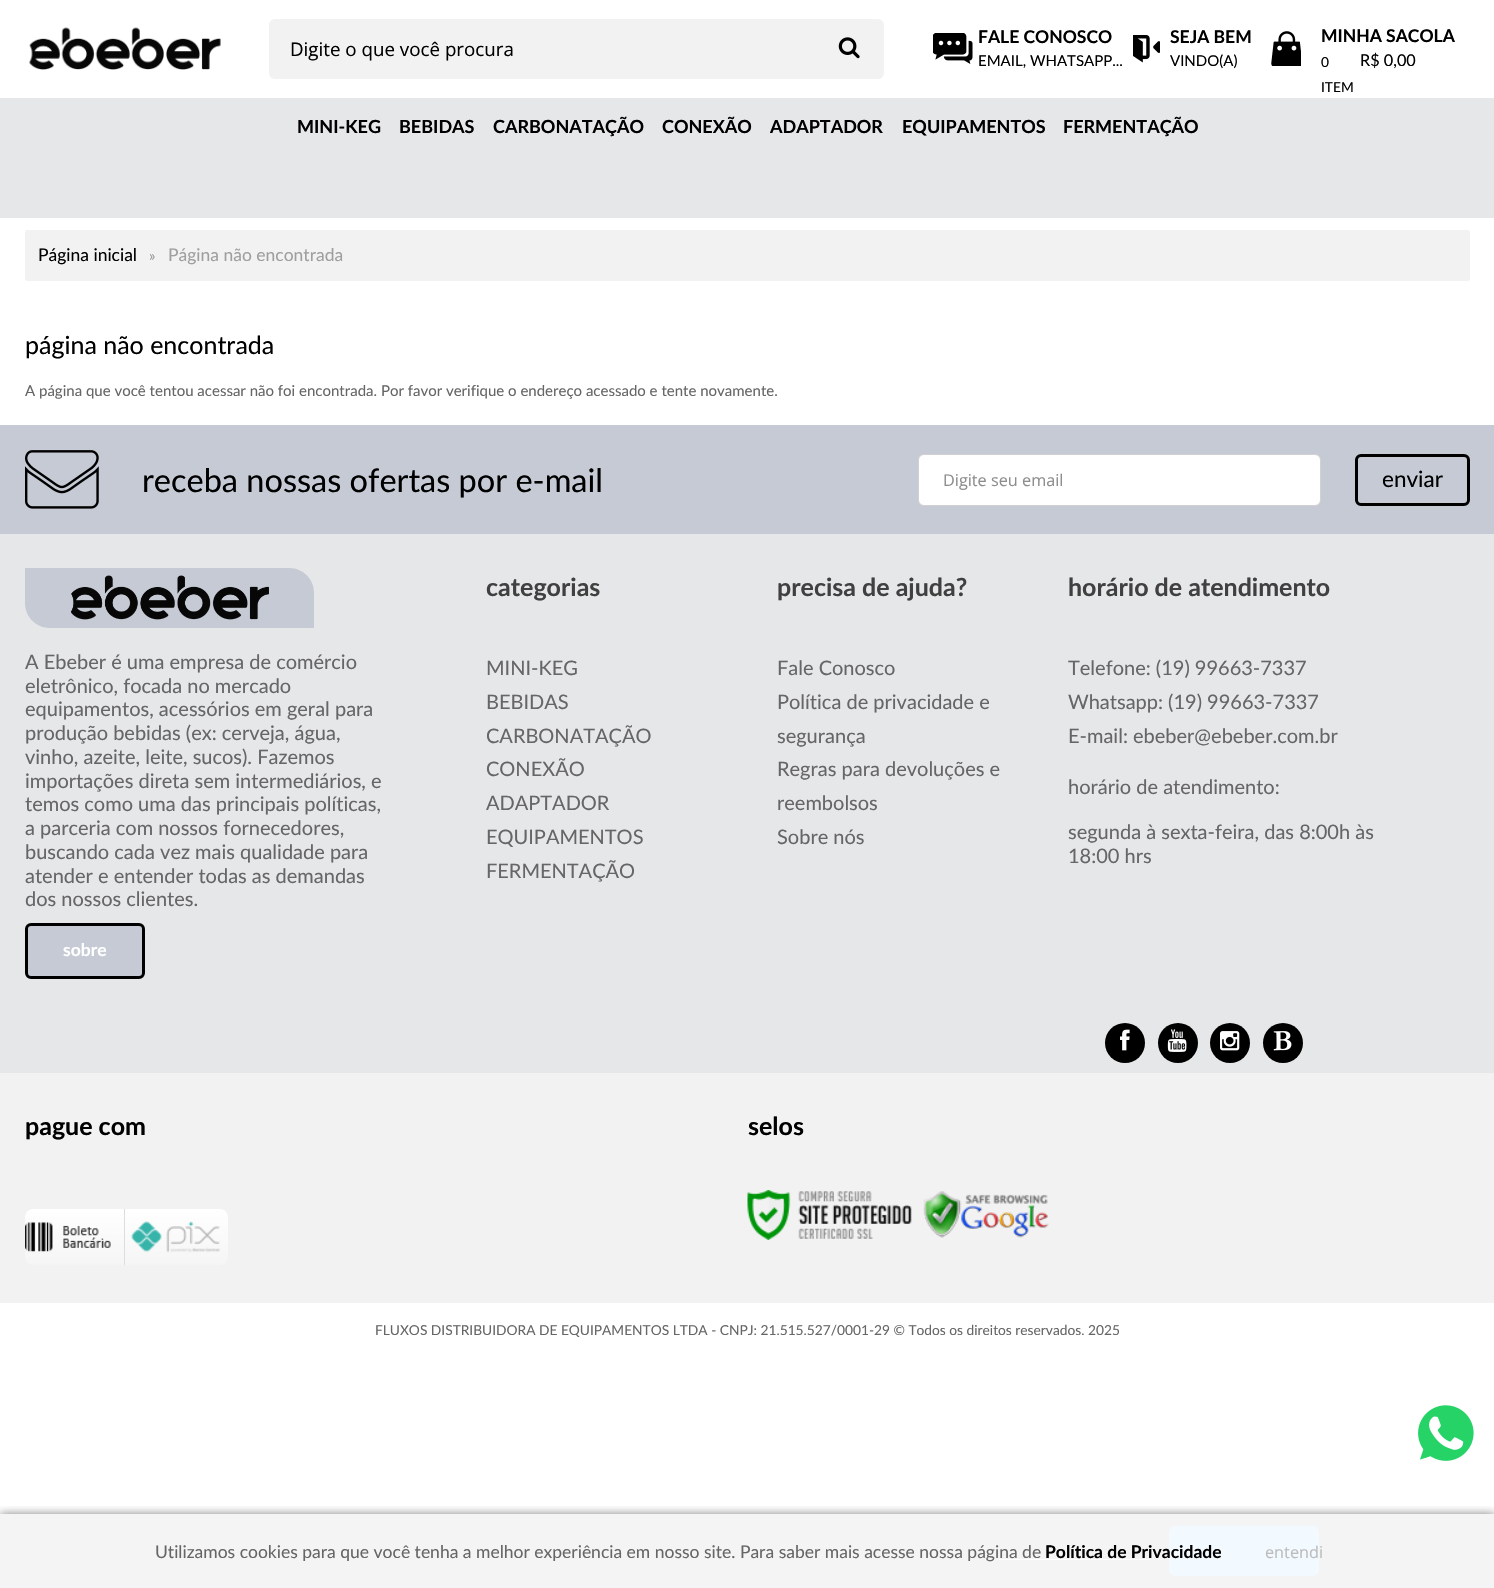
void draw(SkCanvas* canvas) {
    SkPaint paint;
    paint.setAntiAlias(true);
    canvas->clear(0xFFFFFFFF);
    canvas->drawImageRect(SkImages::DeferredFromEncodedData(SkData::MakeFromFileName("img1.png")), SkRect::MakeXYWH(29, 27, 192, 43), SkSamplingOptions());
    paint.setColor(0xFFF2F2F2);
    canvas->drawRoundRect(SkRect::MakeXYWH(269, 19, 615, 60), 6, 6, paint);
    SkFont font1(fontMgr->matchFamilyStyle("Open Sans", SkFontStyle::Normal()), 18.75f);
    font1.setSubpixel(true);
    paint.setColor(0xFF000000);
    canvas->drawString("Digite o que você procura", 290, 56, font1, paint);
    canvas->drawImageRect(SkImages::DeferredFromEncodedData(SkData::MakeFromFileName("img2.png")), SkRect::MakeXYWH(838, 37, 22, 22), SkSamplingOptions());
    canvas->drawImageRect(SkImages::DeferredFromEncodedData(SkData::MakeFromFileName("img3.png")), SkRect::MakeXYWH(933, 33, 40, 31), SkSamplingOptions());
    SkFont font2(fontMgr->matchFamilyStyle("Lato", SkFontStyle::Bold()), 17.5f);
    font2.setSubpixel(true);
    canvas->drawString("FALE CONOSCO", 978, 43, font2, paint);
    SkFont font3(fontMgr->matchFamilyStyle("Lato", SkFontStyle::Normal()), 15);
    font3.setSubpixel(true);
    canvas->drawString("EMAIL, WHATSAPP...", 978, 66, font3, paint);
    canvas->drawImageRect(SkImages::DeferredFromEncodedData(SkData::MakeFromFileName("img4.png")), SkRect::MakeXYWH(1133, 35, 27, 28), SkSamplingOptions());
    canvas->drawString("SEJA BEM", 1170, 43, font2, paint);
    canvas->drawString("VINDO(A)", 1170, 66, font3, paint);
    canvas->drawImageRect(SkImages::DeferredFromEncodedData(SkData::MakeFromFileName("img5.png")), SkRect::MakeXYWH(1271, 31, 30, 35), SkSamplingOptions());
    canvas->drawString("MINHA SACOLA", 1321, 42, font2, paint);
    SkFont font4(fontMgr->matchFamilyStyle("Lato", SkFontStyle::Normal()), 13.75f);
    font4.setSubpixel(true);
    canvas->drawString("0", 1321, 67, font4, paint);
    canvas->drawString("ITEM", 1321, 92, font4, paint);
    SkFont font5(fontMgr->matchFamilyStyle("Lato", SkFontStyle::Normal()), 16.25f);
    font5.setSubpixel(true);
    canvas->drawString("R$ 0,00", 1360, 66, font5, paint);
    paint.setColor(0xFFE5E7E9);
    canvas->drawRect(SkRect::MakeXYWH(0, 98, 1494, 120), paint);
    SkFont font6(fontMgr->matchFamilyStyle("Lato", SkFontStyle::Bold()), 18);
    font6.setSubpixel(true);
    paint.setColor(0xFF000000);
    canvas->drawString("MINI-KEG", 297, 133, font6, paint);
    canvas->drawString("BEBIDAS", 399, 133, font6, paint);
    canvas->drawString("CARBONATAÇÃO", 493, 133, font6, paint);
    canvas->drawString("CONEXÃO", 662, 133, font6, paint);
    canvas->drawString("ADAPTADOR", 770, 133, font6, paint);
    canvas->drawString("EQUIPAMENTOS", 902, 133, font6, paint);
    canvas->drawString("FERMENTAÇÃO", 1063, 133, font6, paint);
    paint.setColor(0xFFF2F2F2);
    canvas->drawRoundRect(SkRect::MakeXYWH(25, 230, 1445, 51), 2.5f, 2.5f, paint);
    SkFont font7(fontMgr->matchFamilyStyle("Lato", SkFontStyle::Normal()), 17.5f);
    font7.setSubpixel(true);
    paint.setColor(0xFF000000);
    canvas->drawString("Página inicial", 38, 261, font7, paint);
    paint.setColor(0xFF999999);
    canvas->drawString("»", 149, 261, font3, paint);
    paint.setColor(0xFF9F9F9F);
    canvas->drawString("Página não encontrada", 168, 261, font7, paint);
    SkFont font8(fontMgr->matchFamilyStyle("Lato", SkFontStyle::Normal()), 25);
    font8.setSubpixel(true);
    paint.setColor(0xFF000000);
    canvas->drawString("página não encontrada", 25, 354, font8, paint);
    paint.setColor(0xFF666666);
    canvas->drawString("A página que você tentou acessar não foi encontrada. Por favor verifique o endereço acessado e tente novamente.", 25, 396, font3, paint);
    paint.setColor(0xFFC5CAD5);
    canvas->drawRect(SkRect::MakeXYWH(0, 425, 1494, 109), paint);
    canvas->drawImageRect(SkImages::DeferredFromEncodedData(SkData::MakeFromFileName("img6.png")), SkRect::MakeXYWH(25, 450, 74, 59), SkSamplingOptions());
    SkFont font9(fontMgr->matchFamilyStyle("Lato", SkFontStyle::Normal()), 32.5f);
    font9.setSubpixel(true);
    paint.setColor(0xFF000000);
    canvas->drawString("receba nossas ofertas por e-mail", 142, 492, font9, paint);
    paint.setColor(0xFFFFFFFF);
    canvas->drawRoundRect(SkRect::MakeXYWH(918.5f, 454.5f, 402, 51), 5.5f, 5.5f, paint);
    paint.setStyle(SkPaint::kStroke_Style);
    paint.setStrokeWidth(1);
    paint.setColor(0xFFD1D1D1);
    canvas->drawRoundRect(SkRect::MakeXYWH(918.5f, 454.5f, 402, 51), 5.5f, 5.5f, paint);
    SkFont font10(fontMgr->matchFamilyStyle("Open Sans", SkFontStyle::Normal()), 16.25f);
    font10.setSubpixel(true);
    paint.setStyle(SkPaint::kFill_Style);
    paint.setColor(0xFF8D8D8D);
    canvas->drawString("Digite seu email", 943, 486, font10, paint);
    paint.setStyle(SkPaint::kStroke_Style);
    paint.setStrokeWidth(3);
    paint.setColor(0xFF000000);
    canvas->drawRoundRect(SkRect::MakeXYWH(1356.5f, 455.5f, 112, 49), 4.5f, 4.5f, paint);
    SkFont font11(fontMgr->matchFamilyStyle("Lato", SkFontStyle::Normal()), 22.5f);
    font11.setSubpixel(true);
    paint.setStyle(SkPaint::kFill_Style);
    canvas->drawString("enviar", 1382, 487, font11, paint);
    paint.setColor(0xFFE5E7E9);
    canvas->drawRect(SkRect::MakeXYWH(0, 534, 1494, 539), paint);
    paint.setColor(0xFFC5CAD5);
    canvas->drawPath(SkPathBuilder().moveTo(25, 568).lineTo(289, 568).cubicTo(303, 568, 314, 579, 314, 593).lineTo(314, 628).lineTo(50, 628).cubicTo(36, 628, 25, 617, 25, 603).close().detach(), paint);
    canvas->drawImageRect(SkImages::DeferredFromEncodedData(SkData::MakeFromFileName("img7.png")), SkRect::MakeXYWH(71, 575, 198, 45), SkSamplingOptions());
    SkFont font12(fontMgr->matchFamilyStyle("Lato", SkFontStyle::Normal()), 20);
    font12.setSubpixel(true);
    paint.setColor(0xFF666666);
    canvas->drawString("A Ebeber é uma empresa de comércio", 25, 669, font12, paint);
    canvas->drawString("eletrônico, focada no mercado", 25, 693, font12, paint);
    canvas->drawString("equipamentos, acessórios em geral para", 25, 716, font12, paint);
    canvas->drawString("produção bebidas (ex: cerveja, água,", 25, 740, font12, paint);
    canvas->drawString("vinho, azeite, leite, sucos). Fazemos", 25, 764, font12, paint);
    canvas->drawString("importações direta sem intermediários, e", 25, 788, font12, paint);
    canvas->drawString("temos como uma das principais políticas,", 25, 811, font12, paint);
    canvas->drawString("a parceria com nossos fornecedores,", 25, 835, font12, paint);
    canvas->drawString("buscando cada vez mais qualidade para", 25, 859, font12, paint);
    canvas->drawString("atender e entender todas as demandas", 25, 883, font12, paint);
    canvas->drawString("dos nossos clientes.", 25, 906, font12, paint);
    paint.setColor(0xFFC5CAD5);
    canvas->drawRoundRect(SkRect::MakeXYWH(26.5f, 924.5f, 117, 53), 4.5f, 4.5f, paint);
    paint.setStyle(SkPaint::kStroke_Style);
    paint.setColor(0xFF000000);
    canvas->drawRoundRect(SkRect::MakeXYWH(26.5f, 924.5f, 117, 53), 4.5f, 4.5f, paint);
    paint.setStyle(SkPaint::kFill_Style);
    paint.setColor(0xFFFFFFFF);
    canvas->drawString("sobre", 63, 956, font2, paint);
    SkFont font13(fontMgr->matchFamilyStyle("Lato", SkFontStyle::Bold()), 25);
    font13.setSubpixel(true);
    paint.setColor(0xFF404040);
    canvas->drawString("categorias", 486, 596, font13, paint);
    paint.setColor(0xFF666666);
    canvas->drawString("MINI-KEG", 486, 675, font12, paint);
    canvas->drawString("BEBIDAS", 486, 709, font12, paint);
    canvas->drawString("CARBONATAÇÃO", 486, 743, font12, paint);
    canvas->drawString("CONEXÃO", 486, 776, font12, paint);
    canvas->drawString("ADAPTADOR", 486, 810, font12, paint);
    canvas->drawString("EQUIPAMENTOS", 486, 844, font12, paint);
    canvas->drawString("FERMENTAÇÃO", 486, 878, font12, paint);
    paint.setColor(0xFF404040);
    canvas->drawString("precisa de ajuda?", 777, 596, font13, paint);
    paint.setColor(0xFF666666);
    canvas->drawString("Fale Conosco", 777, 675, font12, paint);
    canvas->drawString("Política de privacidade e", 777, 709, font12, paint);
    canvas->drawString("segurança", 777, 743, font12, paint);
    canvas->drawString("Regras para devoluções e", 777, 776, font12, paint);
    canvas->drawString("reembolsos", 777, 810, font12, paint);
    canvas->drawString("Sobre nós", 777, 844, font12, paint);
    paint.setColor(0xFF404040);
    canvas->drawString("horário de atendimento", 1068, 596, font13, paint);
    paint.setColor(0xFF666666);
    canvas->drawString("Telefone: (19) 99663-7337", 1068, 675, font12, paint);
    canvas->drawString("Whatsapp: (19) 99663-7337", 1068, 709, font12, paint);
    canvas->drawString("E-mail: ebeber@ebeber.com.br", 1068, 743, font12, paint);
    canvas->drawString("horário de atendimento:", 1068, 794, font12, paint);
    canvas->drawString("segunda à sexta-feira, das 8:00h às", 1068, 839, font12, paint);
    canvas->drawString("18:00 hrs", 1068, 863, font12, paint);
    paint.setColor(0xFF000000);
    canvas->drawCircle(1125, 1043, 20, paint);
    canvas->drawImageRect(SkImages::DeferredFromEncodedData(SkData::MakeFromFileName("img8.png")), SkRect::MakeXYWH(1120, 1029, 10, 22), SkSamplingOptions());
    canvas->drawCircle(1178, 1043, 20, paint);
    canvas->drawImageRect(SkImages::DeferredFromEncodedData(SkData::MakeFromFileName("img9.png")), SkRect::MakeXYWH(1167, 1029, 20, 23), SkSamplingOptions());
    canvas->drawCircle(1230, 1043, 20, paint);
    canvas->drawImageRect(SkImages::DeferredFromEncodedData(SkData::MakeFromFileName("img10.png")), SkRect::MakeXYWH(1220, 1031, 20, 20), SkSamplingOptions());
    canvas->drawCircle(1283, 1043, 20, paint);
    canvas->drawImageRect(SkImages::DeferredFromEncodedData(SkData::MakeFromFileName("img11.png")), SkRect::MakeXYWH(1273, 1031, 19, 20), SkSamplingOptions());
    paint.setColor(0xFFF2F2F2);
    canvas->drawRect(SkRect::MakeXYWH(0, 1073, 1494, 230), paint);
    paint.setColor(0xFF000000);
    canvas->drawString("pague com", 25, 1135, font13, paint);
    {
        const SkColor colors[] = {0xFFFFFFFF, 0xFFF5F5F5};
        const float stops[] = {0, 1};
        const SkPoint ends[] = {{126, 1209}, {126, 1265}};
        paint.setShader(SkGradientShader::MakeLinear(ends, colors, stops, 2, SkTileMode::kClamp));
        paint.setAlpha(255);
    }
    canvas->drawRoundRect(SkRect::MakeXYWH(25, 1209, 203, 56), 8, 8, paint);
    canvas->drawImageRect(SkImages::DeferredFromEncodedData(SkData::MakeFromFileName("img12.png")), SkRect::MakeXYWH(25, 1222, 86, 30), SkSamplingOptions());
    paint.setShader(nullptr);
    paint.setColor(0xFFDDDDDD);
    canvas->drawRect(SkRect::MakeXYWH(124, 1209, 1, 56), paint);
    canvas->drawImageRect(SkImages::DeferredFromEncodedData(SkData::MakeFromFileName("img13.png")), SkRect::MakeXYWH(131, 1221, 89, 32), SkSamplingOptions());
    paint.setColor(0xFF000000);
    canvas->drawString("selos", 748, 1135, font13, paint);
    canvas->drawImageRect(SkImages::DeferredFromEncodedData(SkData::MakeFromFileName("img14.png")), SkRect::MakeXYWH(747, 1190, 165, 50), SkSamplingOptions());
    canvas->drawImageRect(SkImages::DeferredFromEncodedData(SkData::MakeFromFileName("img15.png")), SkRect::MakeXYWH(923, 1191, 126, 47), SkSamplingOptions());
    paint.setColor(0xFF666666);
    canvas->drawString("FLUXOS DISTRIBUIDORA DE EQUIPAMENTOS LTDA - CNPJ: 21.515.527/0001-29 © Todos os direitos reservados. 2025", 375, 1335, font4, paint);
    canvas->drawImageRect(SkImages::DeferredFromEncodedData(SkData::MakeFromFileName("img16.png")), SkRect::MakeXYWH(1418, 1405, 56, 56), SkSamplingOptions());
    paint.setColor(0xFFF4F4F4);
    canvas->drawRect(SkRect::MakeXYWH(0, 1514, 1494, 74), paint);
    paint.setColor(0xFFFFFFFF);
    canvas->drawRect(SkRect::MakeXYWH(999, 1559, 151, 1), paint);
    paint.setColor(0xFFF2F9FF);
    canvas->drawRoundRect(SkRect::MakeXYWH(1169, 1526, 150, 50), 6, 6, paint);
    canvas->save();
    canvas->clipRect(SkRect::MakeXYWH(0, 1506, 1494, 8));
    paint.setColor(0x80000000);
    paint.setMaskFilter(SkMaskFilter::MakeBlur(kNormal_SkBlurStyle, 4.5f));
    canvas->drawRect(SkRect::MakeXYWH(0, 1514, 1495, 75), paint);
    paint.setMaskFilter(nullptr);
    canvas->restore();
    paint.setColor(0xFF666666);
    canvas->drawString("Utilizamos cookies para que você tenha a melhor experiência em nosso site. Para saber mais acesse nossa página de", 155, 1558, font7, paint);
    paint.setColor(0xFF000000);
    canvas->drawString("Política de Privacidade", 1045, 1558, font2, paint);
    paint.setColor(0xFFBCBCBC);
    canvas->drawString("entendi", 1265, 1558, font10, paint);
}
